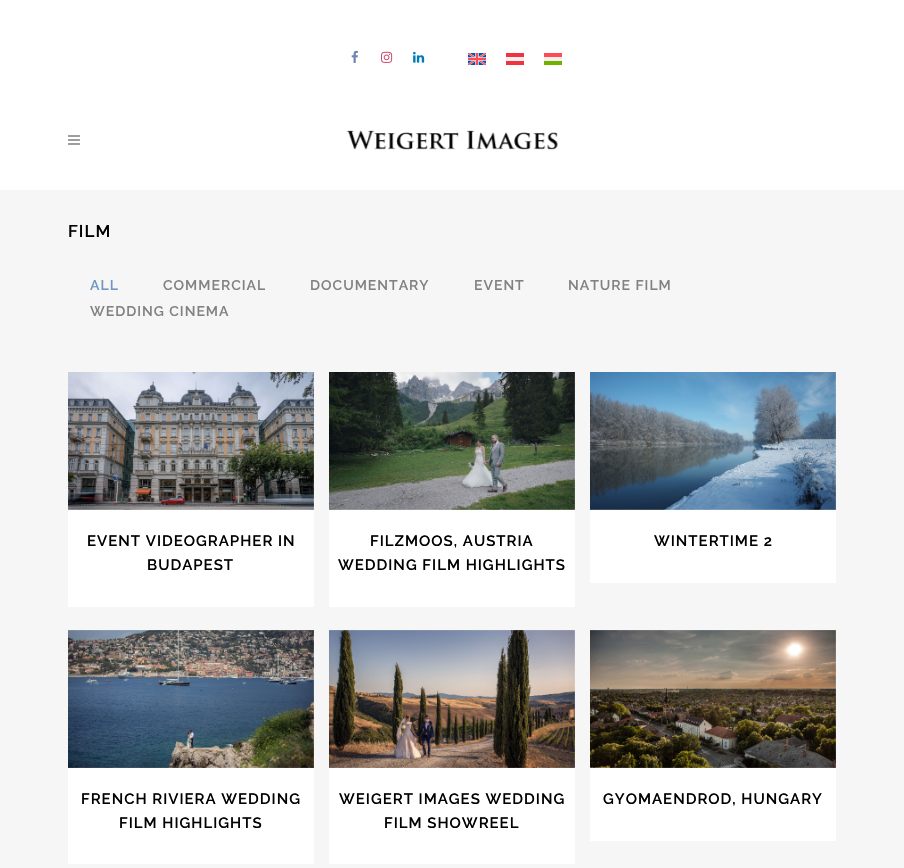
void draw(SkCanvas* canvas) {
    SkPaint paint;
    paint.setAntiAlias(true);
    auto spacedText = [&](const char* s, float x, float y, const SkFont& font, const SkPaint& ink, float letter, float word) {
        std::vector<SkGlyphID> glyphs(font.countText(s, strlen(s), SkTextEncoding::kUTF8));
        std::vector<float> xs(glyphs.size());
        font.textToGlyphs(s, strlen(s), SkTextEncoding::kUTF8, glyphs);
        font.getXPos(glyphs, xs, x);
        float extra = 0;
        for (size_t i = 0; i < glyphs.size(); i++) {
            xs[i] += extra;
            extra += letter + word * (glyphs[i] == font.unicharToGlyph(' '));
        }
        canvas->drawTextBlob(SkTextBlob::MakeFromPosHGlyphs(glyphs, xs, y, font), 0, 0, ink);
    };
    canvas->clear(0xFFF6F6F6);
    paint.setColor(0xFFFFFFFF);
    canvas->drawRect(SkRect::MakeXYWH(0, 0, 904, 190), paint);
    canvas->drawImageRect(SkImages::DeferredFromEncodedData(SkData::MakeFromFileName("img1.png")), SkRect::MakeXYWH(68, 135, 12, 10), SkSamplingOptions());
    canvas->drawImageRect(SkImages::DeferredFromEncodedData(SkData::MakeFromFileName("img2.png")), SkRect::MakeXYWH(346, 130, 212, 20), SkSamplingOptions());
    canvas->drawImageRect(SkImages::DeferredFromEncodedData(SkData::MakeFromFileName("img3.png")), SkRect::MakeXYWH(351, 50, 7, 13), SkSamplingOptions());
    canvas->drawImageRect(SkImages::DeferredFromEncodedData(SkData::MakeFromFileName("img4.png")), SkRect::MakeXYWH(381, 51, 12, 12), SkSamplingOptions());
    canvas->drawImageRect(SkImages::DeferredFromEncodedData(SkData::MakeFromFileName("img5.png")), SkRect::MakeXYWH(413, 51, 12, 12), SkSamplingOptions());
    canvas->drawImageRect(SkImages::DeferredFromEncodedData(SkData::MakeFromFileName("img6.png")), SkRect::MakeXYWH(468, 53, 18, 12), SkSamplingOptions());
    paint.setColor(0xFFEF3340);
    canvas->drawRect(SkRect::MakeXYWH(506, 53, 18, 4), paint);
    paint.setColor(0xFFF0F0F0);
    canvas->drawRect(SkRect::MakeXYWH(506, 57, 18, 4), paint);
    paint.setColor(0xFFEF3340);
    canvas->drawRect(SkRect::MakeXYWH(506, 61, 18, 4), paint);
    paint.setColor(0xFFFF4B55);
    canvas->drawRect(SkRect::MakeXYWH(544, 53, 18, 4), paint);
    paint.setColor(0xFFF0F0F0);
    canvas->drawRect(SkRect::MakeXYWH(544, 57, 18, 4), paint);
    paint.setColor(0xFF73AF00);
    canvas->drawRect(SkRect::MakeXYWH(544, 61, 18, 4), paint);
    SkFont font1(fontMgr->matchFamilyStyle("Raleway", SkFontStyle(600, SkFontStyle::kNormal_Width, SkFontStyle::kUpright_Slant)), 17);
    font1.setSubpixel(true);
    paint.setColor(0xFF000000);
    spacedText("FILM", 68, 237, font1, paint, 1, 0);
    SkFont font2(fontMgr->matchFamilyStyle("Raleway", SkFontStyle(600, SkFontStyle::kNormal_Width, SkFontStyle::kUpright_Slant)), 14);
    font2.setSubpixel(true);
    paint.setColor(0xFF6E97BF);
    spacedText("ALL", 90, 290, font2, paint, 1, 0);
    paint.setColor(0xFF818181);
    spacedText("COMMERCIAL", 163, 290, font2, paint, 1, 0);
    spacedText("DOCUMENTARY", 310, 290, font2, paint, 1, 0);
    spacedText("EVENT", 474, 290, font2, paint, 1, 0);
    spacedText("NATURE FILM", 568, 290, font2, paint, 1, 0);
    spacedText("WEDDING CINEMA", 90, 316, font2, paint, 1, 0);
    canvas->drawImageRect(SkImages::DeferredFromEncodedData(SkData::MakeFromFileName("img7.png")), SkRect::MakeXYWH(68, 372, 246, 138), SkSamplingOptions());
    paint.setColor(0xFFFFFFFF);
    canvas->drawRect(SkRect::MakeXYWH(68, 510, 246, 97), paint);
    SkFont font3(fontMgr->matchFamilyStyle("Raleway", SkFontStyle(600, SkFontStyle::kNormal_Width, SkFontStyle::kUpright_Slant)), 15);
    font3.setSubpixel(true);
    paint.setColor(0xFF000000);
    spacedText("EVENT VIDEOGRAPHER IN", 87, 546, font3, paint, 1, 0);
    spacedText("BUDAPEST", 147, 570, font3, paint, 1, 0);
    canvas->drawImageRect(SkImages::DeferredFromEncodedData(SkData::MakeFromFileName("img8.png")), SkRect::MakeXYWH(329, 372, 246, 138), SkSamplingOptions());
    paint.setColor(0xFFFFFFFF);
    canvas->drawRect(SkRect::MakeXYWH(329, 510, 246, 97), paint);
    paint.setColor(0xFF000000);
    spacedText("FILZMOOS, AUSTRIA", 370, 546, font3, paint, 1, 0);
    spacedText("WEDDING FILM HIGHLIGHTS", 338, 570, font3, paint, 1, 0);
    canvas->drawImageRect(SkImages::DeferredFromEncodedData(SkData::MakeFromFileName("img9.png")), SkRect::MakeXYWH(590, 372, 246, 138), SkSamplingOptions());
    paint.setColor(0xFFFFFFFF);
    canvas->drawRect(SkRect::MakeXYWH(590, 510, 246, 73), paint);
    paint.setColor(0xFF000000);
    spacedText("WINTERTIME 2", 654, 546, font3, paint, 1, 0);
    canvas->drawImageRect(SkImages::DeferredFromEncodedData(SkData::MakeFromFileName("img10.png")), SkRect::MakeXYWH(68, 630, 246, 138), SkSamplingOptions());
    paint.setColor(0xFFFFFFFF);
    canvas->drawRect(SkRect::MakeXYWH(68, 768, 246, 96), paint);
    paint.setColor(0xFF000000);
    spacedText("FRENCH RIVIERA WEDDING", 81, 804, font3, paint, 1, 0);
    spacedText("FILM HIGHLIGHTS", 119, 828, font3, paint, 1, 0);
    canvas->drawImageRect(SkImages::DeferredFromEncodedData(SkData::MakeFromFileName("img11.png")), SkRect::MakeXYWH(329, 630, 246, 138), SkSamplingOptions());
    paint.setColor(0xFFFFFFFF);
    canvas->drawRect(SkRect::MakeXYWH(329, 768, 246, 96), paint);
    paint.setColor(0xFF000000);
    spacedText("WEIGERT IMAGES WEDDING", 339, 804, font3, paint, 1, 0);
    spacedText("FILM SHOWREEL", 384, 828, font3, paint, 1, 0);
    canvas->drawImageRect(SkImages::DeferredFromEncodedData(SkData::MakeFromFileName("img12.png")), SkRect::MakeXYWH(590, 630, 246, 138), SkSamplingOptions());
    paint.setColor(0xFFFFFFFF);
    canvas->drawRect(SkRect::MakeXYWH(590, 768, 246, 73), paint);
    paint.setColor(0xFF000000);
    spacedText("GYOMAENDROD, HUNGARY", 603, 804, font3, paint, 1, 0);
}
